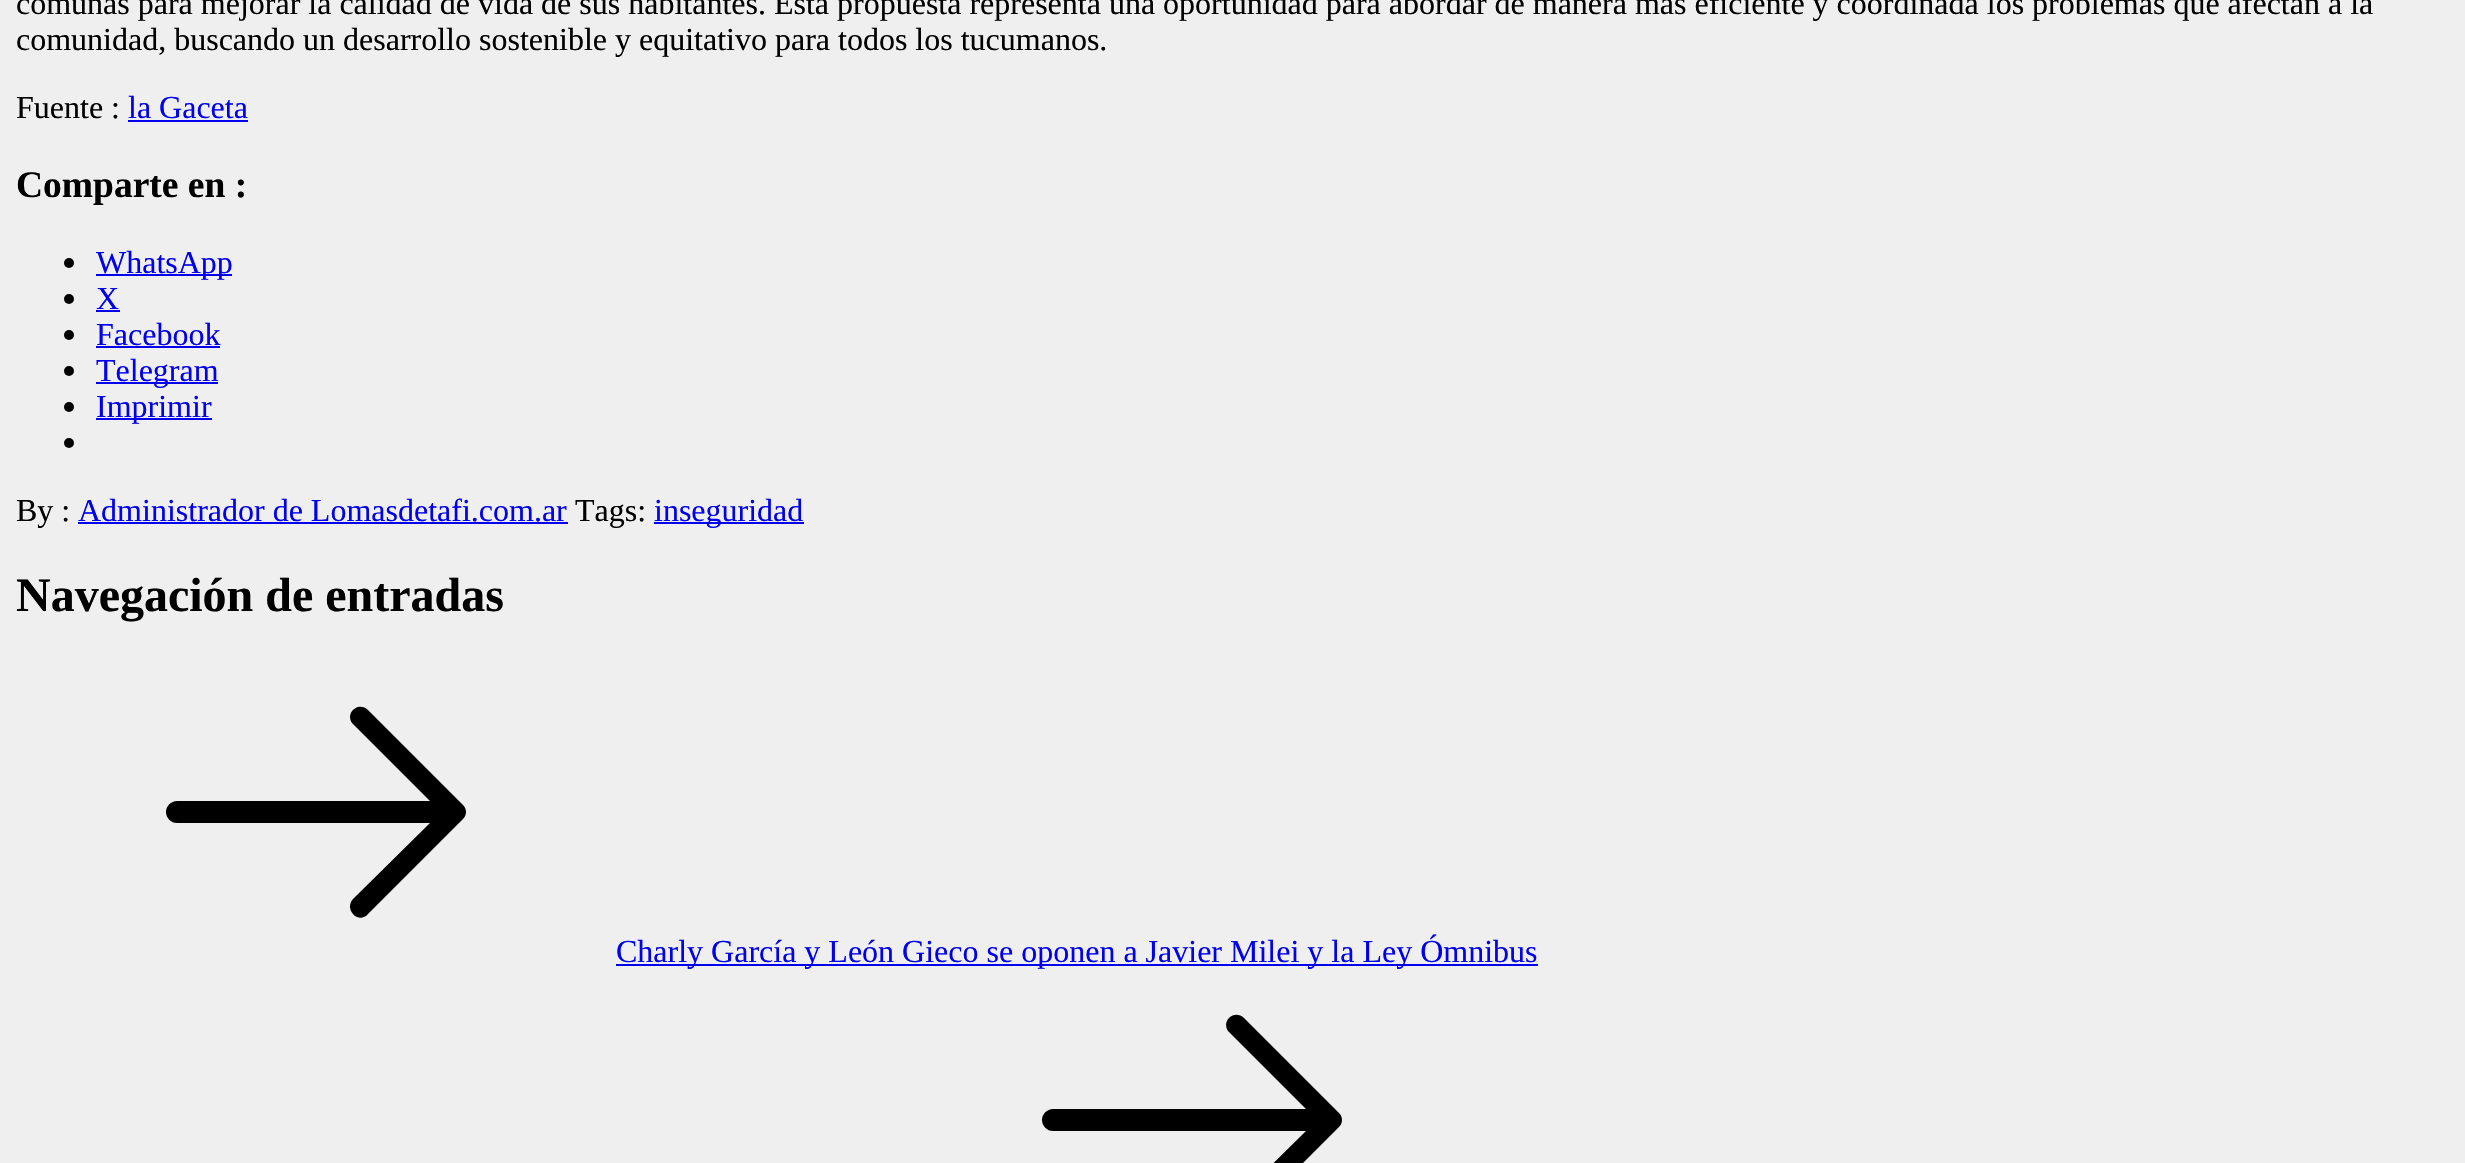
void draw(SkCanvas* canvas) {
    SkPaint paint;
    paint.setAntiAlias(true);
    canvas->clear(0xFFEFEFEF);
    SkFont font1(fontMgr->matchFamilyStyle("Liberation Serif", SkFontStyle::Normal()), 32);
    font1.setSubpixel(true);
    paint.setColor(0xFF000000);
    canvas->drawString("comunas para mejorar la calidad de vida de sus habitantes. Esta propuesta representa una oportunidad para abordar de manera más eficiente y coordinada los problemas que afectan a la", 16, 14, font1, paint);
    canvas->drawString("comunidad, buscando un desarrollo sostenible y equitativo para todos los tucumanos.", 16, 50, font1, paint);
    canvas->drawString("Fuente :", 16, 118, font1, paint);
    paint.setColor(0xFF0000EE);
    canvas->drawString("la Gaceta", 128, 118, font1, paint);
    canvas->drawRect(SkRect::MakeXYWH(128, 120, 120, 2), paint);
    SkFont font2(fontMgr->matchFamilyStyle("Liberation Serif", SkFontStyle::Bold()), 37.5f);
    font2.setSubpixel(true);
    paint.setColor(0xFF000000);
    canvas->drawString("Comparte en :", 16, 197, font2, paint);
    canvas->drawCircle(69, 263, 5, paint);
    paint.setColor(0xFF0000EE);
    canvas->drawRect(SkRect::MakeXYWH(96, 274, 136, 2), paint);
    canvas->drawString("WhatsApp", 96, 273, font1, paint);
    paint.setColor(0xFF000000);
    canvas->drawCircle(69, 299, 5, paint);
    paint.setColor(0xFF0000EE);
    canvas->drawString("X", 96, 309, font1, paint);
    canvas->drawRect(SkRect::MakeXYWH(96, 310, 24, 2), paint);
    paint.setColor(0xFF000000);
    canvas->drawCircle(69, 335, 5, paint);
    paint.setColor(0xFF0000EE);
    canvas->drawString("Facebook", 96, 345, font1, paint);
    canvas->drawRect(SkRect::MakeXYWH(96, 346, 124, 2), paint);
    paint.setColor(0xFF000000);
    canvas->drawCircle(69, 371, 5, paint);
    paint.setColor(0xFF0000EE);
    canvas->drawRect(SkRect::MakeXYWH(96, 382, 122, 2), paint);
    canvas->drawString("Telegram", 96, 381, font1, paint);
    paint.setColor(0xFF000000);
    canvas->drawCircle(69, 407, 5, paint);
    paint.setColor(0xFF0000EE);
    canvas->drawRect(SkRect::MakeXYWH(96, 418, 116, 2), paint);
    canvas->drawString("Imprimir", 96, 417, font1, paint);
    paint.setColor(0xFF000000);
    canvas->drawCircle(69, 443, 5, paint);
    canvas->drawString("By :", 16, 521, font1, paint);
    paint.setColor(0xFF0000EE);
    canvas->drawString("Administrador de Lomasdetafi.com.ar", 78, 521, font1, paint);
    canvas->drawRect(SkRect::MakeXYWH(78, 522, 490, 2), paint);
    paint.setColor(0xFF000000);
    canvas->drawString("Tags:", 575, 521, font1, paint);
    paint.setColor(0xFF0000EE);
    canvas->drawRect(SkRect::MakeXYWH(654, 522, 150, 2), paint);
    canvas->drawString("inseguridad", 654, 521, font1, paint);
    SkFont font3(fontMgr->matchFamilyStyle("Liberation Serif", SkFontStyle::Bold()), 48);
    font3.setSubpixel(true);
    paint.setColor(0xFF000000);
    canvas->drawString("Navegación de entradas", 16, 611, font3, paint);
    paint.setColor(0xFF0000EE);
    canvas->drawRect(SkRect::MakeXYWH(616, 964, 922, 2), paint);
    canvas->drawString("Charly García y León Gieco se oponen a Javier Milei y la Ley Ómnibus", 616, 962, font1, paint);
    paint.setColor(0xFF000000);
    canvas->drawPath(SkPathBuilder().moveTo(368, 710).cubicTo(359, 701, 345, 712, 352, 723).lineTo(430, 801).lineTo(177, 801).cubicTo(171, 801, 166, 806, 166, 812).cubicTo(166, 818, 171, 823, 177, 823).lineTo(430, 823).lineTo(353, 899).cubicTo(349, 903, 349, 910, 353, 914).cubicTo(357, 919, 364, 919, 368, 914).lineTo(463, 819).cubicTo(467, 815, 467, 809, 463, 805).close().detach(), paint);
    canvas->drawPath(SkPathBuilder().moveTo(1244, 1018).cubicTo(1235, 1009, 1221, 1020, 1228, 1031).lineTo(1306, 1109).lineTo(1053, 1109).cubicTo(1047, 1109, 1042, 1114, 1042, 1120).cubicTo(1042, 1126, 1047, 1131, 1053, 1131).lineTo(1306, 1131).lineTo(1229, 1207).cubicTo(1225, 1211, 1225, 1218, 1229, 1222).cubicTo(1233, 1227, 1240, 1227, 1244, 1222).lineTo(1339, 1127).cubicTo(1343, 1123, 1343, 1117, 1339, 1113).close().detach(), paint);
}
